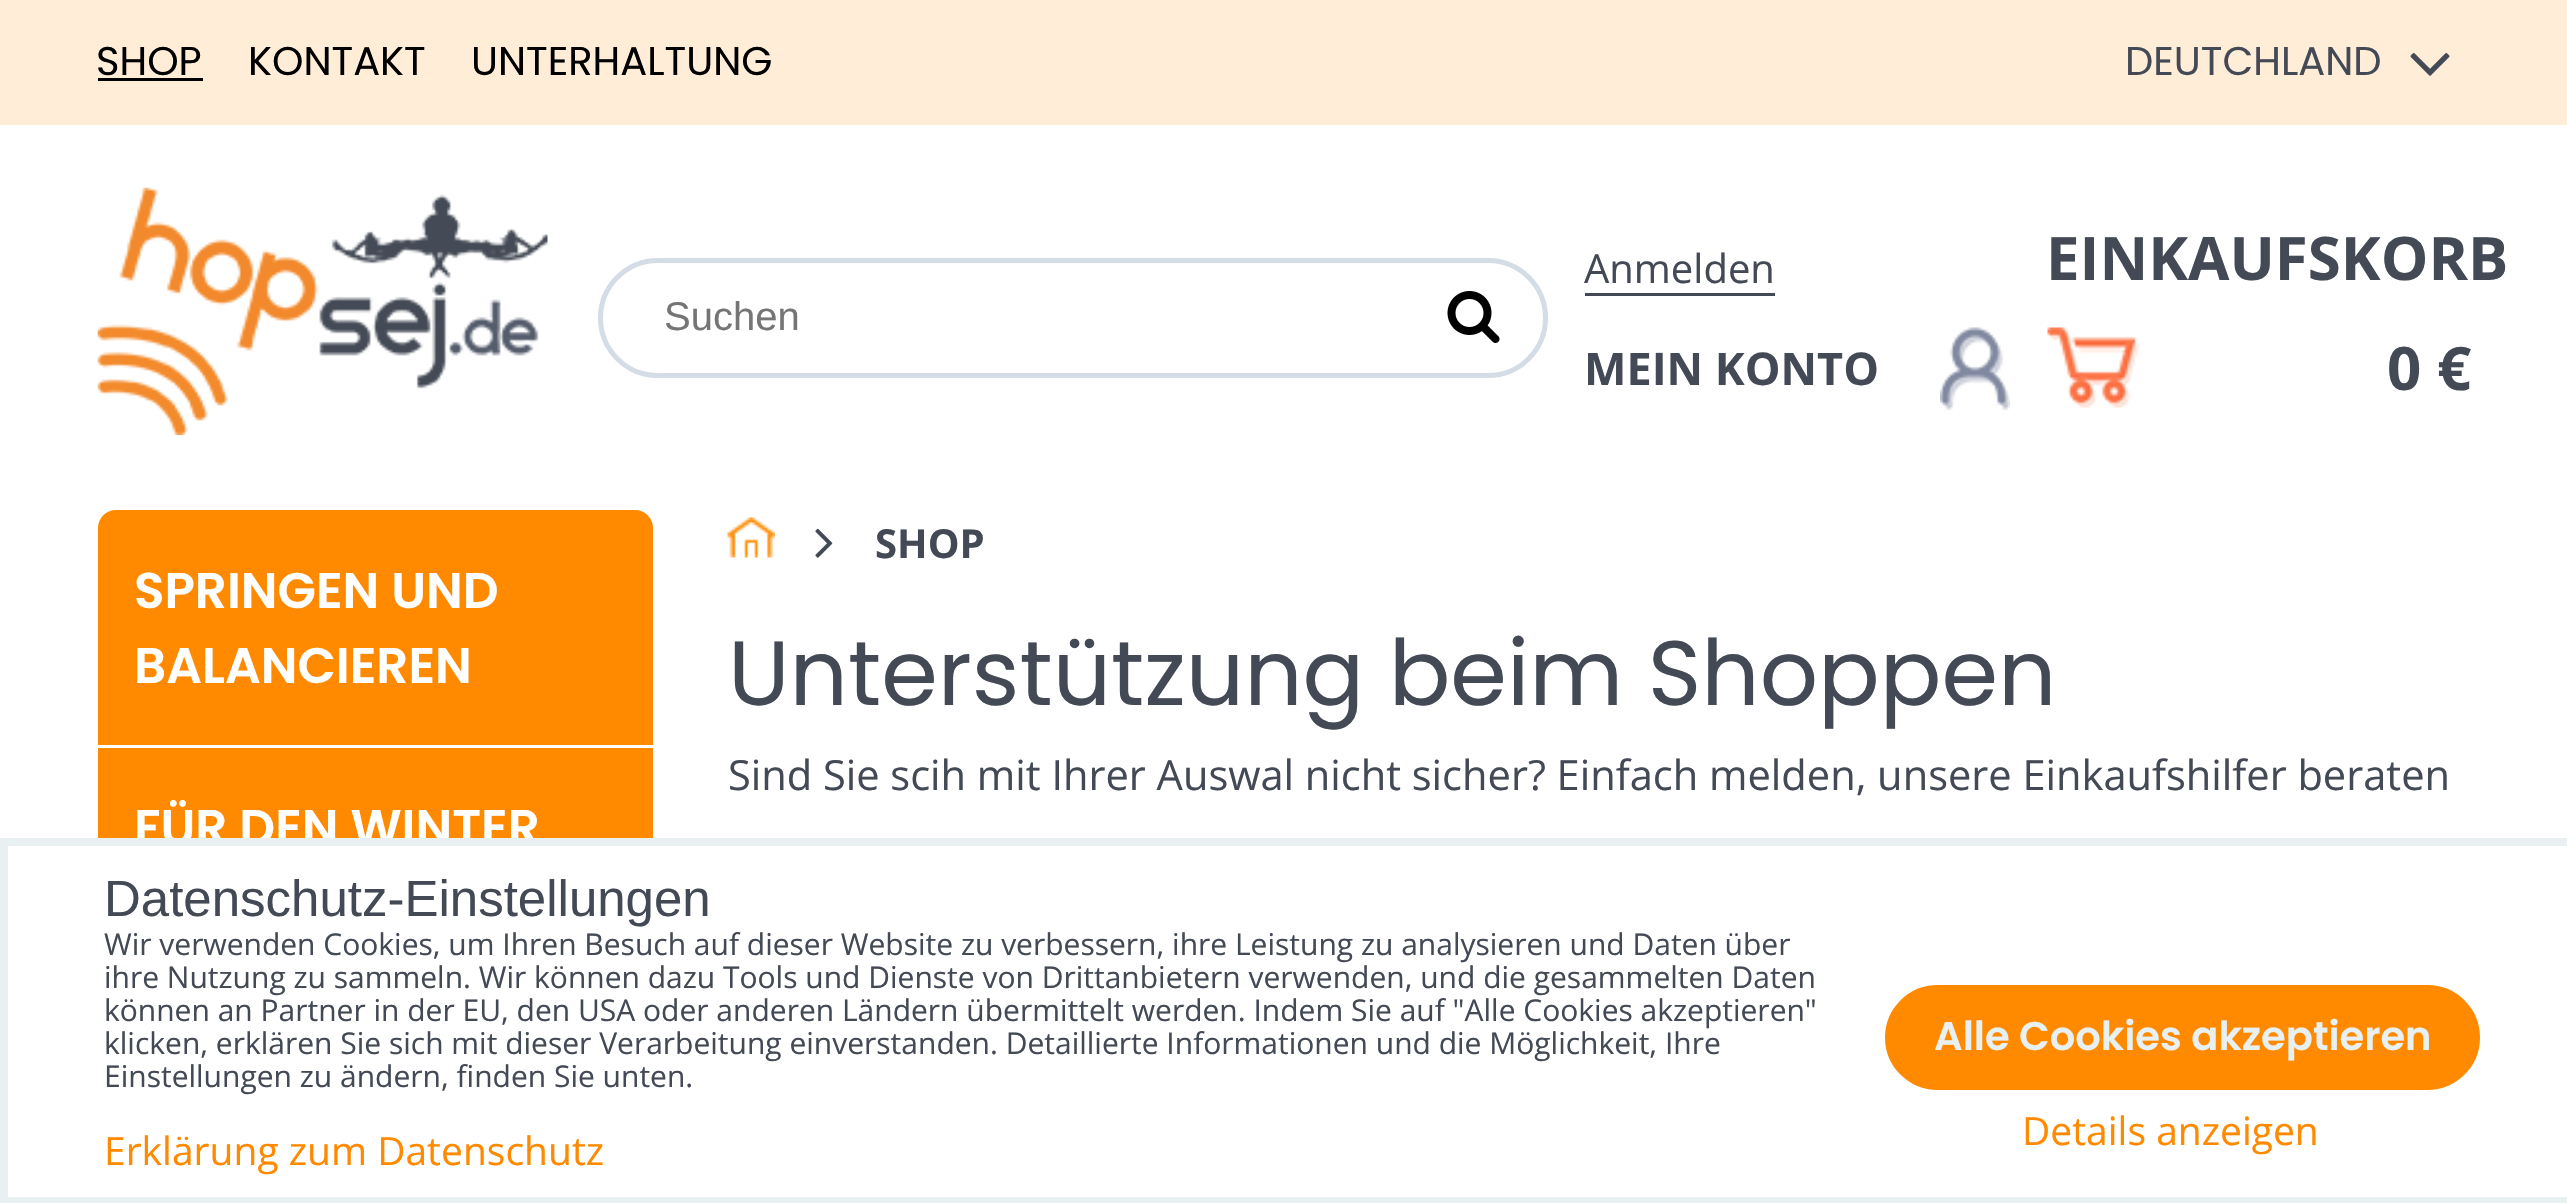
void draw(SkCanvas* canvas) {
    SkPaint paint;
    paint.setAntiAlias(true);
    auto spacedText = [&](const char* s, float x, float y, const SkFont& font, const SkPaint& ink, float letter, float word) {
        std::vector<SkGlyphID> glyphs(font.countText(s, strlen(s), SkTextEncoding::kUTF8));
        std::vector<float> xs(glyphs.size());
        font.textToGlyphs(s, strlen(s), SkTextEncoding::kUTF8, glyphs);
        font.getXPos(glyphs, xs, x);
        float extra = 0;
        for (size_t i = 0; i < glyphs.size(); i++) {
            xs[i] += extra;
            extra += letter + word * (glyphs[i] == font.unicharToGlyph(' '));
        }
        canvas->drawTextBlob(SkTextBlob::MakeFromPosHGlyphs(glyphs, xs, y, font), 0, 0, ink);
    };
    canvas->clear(0xFFFFFFFF);
    paint.setColor(0xFFFFEDD8);
    canvas->drawRect(SkRect::MakeXYWH(0, 0, 2567, 125), paint);
    SkFont font1(fontMgr->matchFamilyStyle("Poppins", SkFontStyle::Normal()), 40);
    font1.setSubpixel(true);
    paint.setColor(0xFF000000);
    canvas->drawString("SHOP", 96, 75, font1, paint);
    canvas->drawRect(SkRect::MakeXYWH(98, 78, 105, 3), paint);
    canvas->drawString("KONTAKT", 248, 75, font1, paint);
    canvas->drawString("UNTERHALTUNG", 471, 75, font1, paint);
    paint.setColor(0xFF434A55);
    canvas->drawString("DEUTCHLAND", 2125, 75, font1, paint);
    canvas->drawImageRect(SkImages::DeferredFromEncodedData(SkData::MakeFromFileName("img1.png")), SkRect::MakeXYWH(2410, 53, 40, 23), SkSamplingOptions());
    canvas->drawImageRect(SkImages::DeferredFromEncodedData(SkData::MakeFromFileName("img2.png")), SkRect::MakeXYWH(97, 187, 451, 248), SkSamplingOptions());
    paint.setStyle(SkPaint::kStroke_Style);
    paint.setStrokeWidth(5);
    paint.setColor(0xFFD4DCE6);
    canvas->drawRoundRect(SkRect::MakeXYWH(600.5f, 260.5f, 945, 115), 57.5f, 57.5f, paint);
    SkFont font2(fontMgr->matchFamilyStyle("Liberation Sans", SkFontStyle::Normal()), 40);
    font2.setSubpixel(true);
    paint.setStyle(SkPaint::kFill_Style);
    paint.setColor(0xFF757575);
    canvas->drawString("Suchen", 664, 330, font2, paint);
    canvas->drawImageRect(SkImages::DeferredFromEncodedData(SkData::MakeFromFileName("img3.png")), SkRect::MakeXYWH(1447, 291, 53, 52), SkSamplingOptions());
    SkFont font3(fontMgr->matchFamilyStyle("Open Sans", SkFontStyle::Normal()), 40);
    font3.setSubpixel(true);
    paint.setColor(0xFF434A55);
    canvas->drawString("Anmelden", 1584, 283, font3, paint);
    canvas->drawRect(SkRect::MakeXYWH(1585, 293, 190, 3), paint);
    SkFont font4(fontMgr->matchFamilyStyle("Open Sans", SkFontStyle::Bold()), 45);
    font4.setSubpixel(true);
    canvas->drawString("MEIN KONTO", 1584, 385, font4, paint);
    canvas->drawImageRect(SkImages::DeferredFromEncodedData(SkData::MakeFromFileName("img4.png")), SkRect::MakeXYWH(1940, 327, 70, 83), SkSamplingOptions());
    SkFont font5(fontMgr->matchFamilyStyle("Open Sans", SkFontStyle::Bold()), 60);
    font5.setSubpixel(true);
    canvas->drawString("EINKAUFSKORB", 2046, 280, font5, paint);
    canvas->drawImageRect(SkImages::DeferredFromEncodedData(SkData::MakeFromFileName("img5.png")), SkRect::MakeXYWH(2047, 327, 93, 81), SkSamplingOptions());
    canvas->drawString("0 €", 2387, 390, font5, paint);
    paint.setColor(0xFFFF8A00);
    canvas->drawPath(SkPathBuilder().moveTo(116, 510).lineTo(635, 510).cubicTo(645, 510, 653, 518, 653, 528).lineTo(653, 748).lineTo(98, 748).lineTo(98, 528).cubicTo(98, 518, 106, 510, 116, 510).close().detach(), paint);
    paint.setColor(0xFFFFFFFF);
    canvas->drawRect(SkRect::MakeXYWH(98, 745, 555, 3), paint);
    SkFont font6(fontMgr->matchFamilyStyle("Poppins", SkFontStyle(600, SkFontStyle::kNormal_Width, SkFontStyle::kUpright_Slant)), 50);
    font6.setSubpixel(true);
    canvas->drawString("SPRINGEN UND", 134, 608, font6, paint);
    canvas->drawString("BALANCIEREN", 134, 683, font6, paint);
    paint.setColor(0xFFFF8A00);
    canvas->drawRect(SkRect::MakeXYWH(98, 748, 555, 90), paint);
    paint.setColor(0xFFFFFFFF);
    canvas->drawString("FÜR DEN WINTER", 134, 845, font6, paint);
    canvas->drawImageRect(SkImages::DeferredFromEncodedData(SkData::MakeFromFileName("img6.png")), SkRect::MakeXYWH(727, 517, 48, 41), SkSamplingOptions());
    canvas->drawImageRect(SkImages::DeferredFromEncodedData(SkData::MakeFromFileName("img7.png")), SkRect::MakeXYWH(815, 528, 18, 30), SkSamplingOptions());
    SkFont font7(fontMgr->matchFamilyStyle("Open Sans", SkFontStyle::Bold()), 40);
    font7.setSubpixel(true);
    paint.setColor(0xFF434A55);
    canvas->drawString("SHOP", 875, 558, font7, paint);
    SkFont font8(fontMgr->matchFamilyStyle("Poppins", SkFontStyle::Normal()), 91.25f);
    font8.setSubpixel(true);
    canvas->drawString("Unterstützung beim Shoppen", 728, 705, font8, paint);
    SkFont font9(fontMgr->matchFamilyStyle("Open Sans", SkFontStyle::Normal()), 41.6f);
    font9.setSubpixel(true);
    spacedText("Sind Sie scih mit Ihrer Auswal nicht sicher? Einfach melden, unsere Einkaufshilfer beraten", 728, 790, font9, paint, 0, -0.1f);
    paint.setStyle(SkPaint::kStroke_Style);
    paint.setStrokeWidth(8);
    paint.setColor(0xFFE9F0F2);
    canvas->drawRect(SkRect::MakeXYWH(4, 842, 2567, 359), paint);
    SkFont font10(fontMgr->matchFamilyStyle("Liberation Sans", SkFontStyle::Normal()), 51);
    font10.setSubpixel(true);
    paint.setStyle(SkPaint::kFill_Style);
    paint.setColor(0xFF434A55);
    canvas->drawString("Datenschutz-Einstellungen", 104, 916, font10, paint);
    SkFont font11(fontMgr->matchFamilyStyle("Open Sans", SkFontStyle::Normal()), 30);
    font11.setSubpixel(true);
    canvas->drawString("Wir verwenden Cookies, um Ihren Besuch auf dieser Website zu verbessern, ihre Leistung zu analysieren und Daten über", 104, 955, font11, paint);
    canvas->drawString("ihre Nutzung zu sammeln. Wir können dazu Tools und Dienste von Drittanbietern verwenden, und die gesammelten Daten", 104, 988, font11, paint);
    canvas->drawString("können an Partner in der EU, den USA oder anderen Ländern übermittelt werden. Indem Sie auf \"Alle Cookies akzeptieren\"", 104, 1021, font11, paint);
    canvas->drawString("klicken, erklären Sie sich mit dieser Verarbeitung einverstanden. Detaillierte Informationen und die Möglichkeit, Ihre", 104, 1054, font11, paint);
    canvas->drawString("Einstellungen zu ändern, finden Sie unten.", 104, 1087, font11, paint);
    SkFont font12(fontMgr->matchFamilyStyle("Open Sans", SkFontStyle::Normal()), 39);
    font12.setSubpixel(true);
    paint.setColor(0xFFFF8A00);
    canvas->drawString("Erklärung zum Datenschutz", 104, 1165, font12, paint);
    canvas->drawRoundRect(SkRect::MakeXYWH(1887.5f, 987.5f, 590, 100), 50, 50, paint);
    paint.setStyle(SkPaint::kStroke_Style);
    paint.setStrokeWidth(5);
    canvas->drawRoundRect(SkRect::MakeXYWH(1887.5f, 987.5f, 590, 100), 50, 50, paint);
    SkFont font13(fontMgr->matchFamilyStyle("Poppins", SkFontStyle(600, SkFontStyle::kNormal_Width, SkFontStyle::kUpright_Slant)), 40);
    font13.setSubpixel(true);
    paint.setStyle(SkPaint::kFill_Style);
    paint.setColor(0xFFE9F0F2);
    canvas->drawString("Alle Cookies akzeptieren", 1934, 1050, font13, paint);
    paint.setColor(0xFFFF8A00);
    canvas->drawString("Details anzeigen", 2022, 1145, font12, paint);
}
